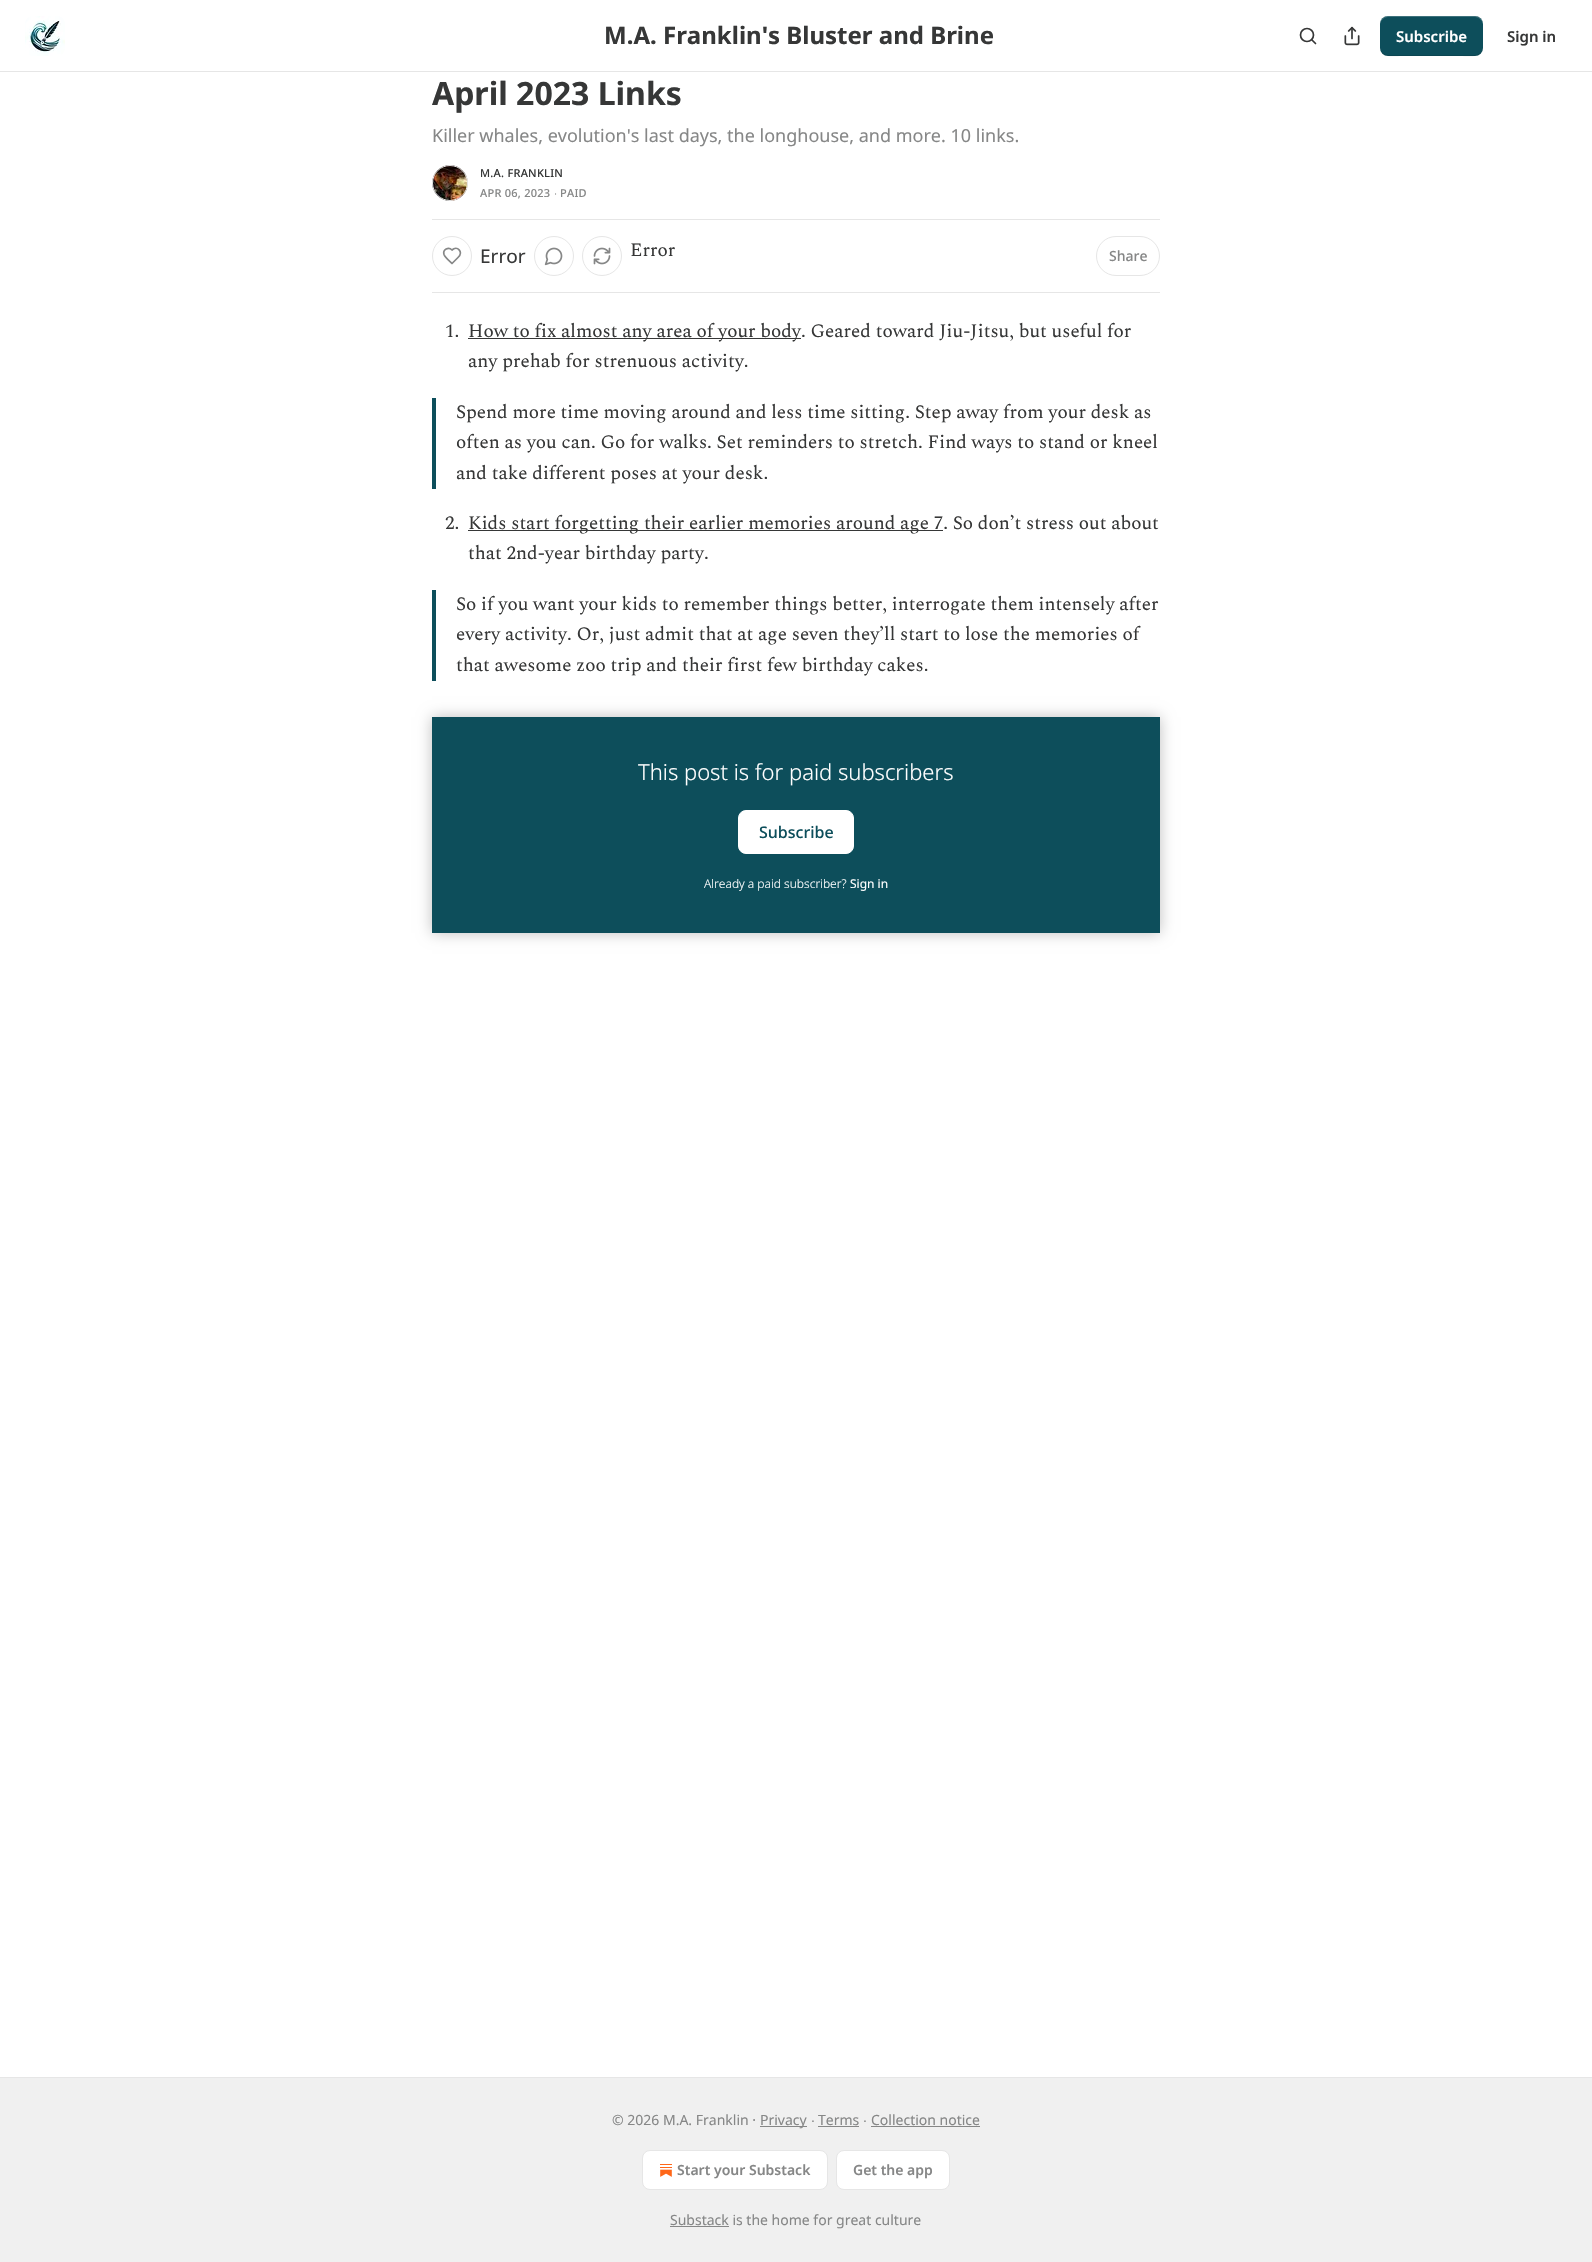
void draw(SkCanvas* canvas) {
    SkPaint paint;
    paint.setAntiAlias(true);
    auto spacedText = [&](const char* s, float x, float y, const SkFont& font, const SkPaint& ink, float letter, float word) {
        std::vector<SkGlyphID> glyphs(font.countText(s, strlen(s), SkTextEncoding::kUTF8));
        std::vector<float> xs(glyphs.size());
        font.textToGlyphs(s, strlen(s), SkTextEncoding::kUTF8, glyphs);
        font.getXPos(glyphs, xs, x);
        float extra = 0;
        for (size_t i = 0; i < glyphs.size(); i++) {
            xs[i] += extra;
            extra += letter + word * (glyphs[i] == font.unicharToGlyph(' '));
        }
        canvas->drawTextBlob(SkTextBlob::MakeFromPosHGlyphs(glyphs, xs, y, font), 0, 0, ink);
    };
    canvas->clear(0xFFFFFFFF);
    paint.setColor(0xFFE6E6E6);
    canvas->drawRect(SkRect::MakeXYWH(0, 71, 1592, 1), paint);
    canvas->drawImageRect(SkImages::DeferredFromEncodedData(SkData::MakeFromFileName("img1.png")), SkRect::MakeXYWH(25, 16, 40, 40), SkSamplingOptions());
    SkFont font1(fontMgr->matchFamilyStyle("Noto Sans", SkFontStyle::Bold()), 24);
    font1.setSubpixel(true);
    paint.setColor(0xFF363737);
    canvas->drawString("M.A. Franklin's Bluster and Brine", 604, 44, font1, paint);
    paint.setStyle(SkPaint::kStroke_Style);
    paint.setStrokeWidth(1.7f);
    canvas->drawCircle(1307, 35, 6.5f, paint);
    paint.setStrokeCap(SkPaint::kRound_Cap);
    paint.setStrokeJoin(SkPaint::kRound_Join);
    canvas->drawPath(SkPathBuilder().moveTo(1315.5f, 43.5f).lineTo(1312, 40).detach(), paint);
    canvas->drawImageRect(SkImages::DeferredFromEncodedData(SkData::MakeFromFileName("img2.png")), SkRect::MakeXYWH(1344, 26, 16, 20), SkSamplingOptions());
    paint.setStyle(SkPaint::kFill_Style);
    paint.setColor(0xFF0D4E5B);
    canvas->drawRoundRect(SkRect::MakeXYWH(1380, 16, 103, 40), 8, 8, paint);
    paint.setColor(0x1A000000);
    canvas->drawPath(SkPathBuilder().moveTo(1380, 47).cubicTo(1380, 59, 1394, 56, 1402, 56).lineTo(1460, 56).cubicTo(1469, 56, 1483, 59, 1483, 47).cubicTo(1483, 51, 1479, 55, 1475, 55).lineTo(1388, 55).cubicTo(1384, 55, 1380, 51, 1380, 47).close().detach(), paint);
    paint.setColor(0x33FFFFFF);
    canvas->drawPath(SkPathBuilder().moveTo(1388, 17).lineTo(1475, 17).cubicTo(1479, 17, 1483, 21, 1483, 25).cubicTo(1483, 13, 1469, 16, 1460, 16).lineTo(1402, 16).cubicTo(1394, 16, 1380, 13, 1380, 25).cubicTo(1380, 21, 1384, 17, 1388, 17).close().detach(), paint);
    SkFont font2(fontMgr->matchFamilyStyle("Noto Sans", SkFontStyle(600, SkFontStyle::kNormal_Width, SkFontStyle::kUpright_Slant)), 15);
    font2.setSubpixel(true);
    paint.setColor(0xFFFFFFFF);
    canvas->drawString("Subscribe", 1396, 42, font2, paint);
    paint.setColor(0xFF363737);
    canvas->drawString("Sign in", 1507, 42, font2, paint);
    SkFont font3(fontMgr->matchFamilyStyle("Noto Sans", SkFontStyle::Bold()), 32);
    font3.setSubpixel(true);
    canvas->drawString("April 2023 Links", 432, 105, font3, paint);
    SkFont font4(fontMgr->matchFamilyStyle("Noto Sans", SkFontStyle::Normal()), 18);
    font4.setSubpixel(true);
    paint.setColor(0xFF868787);
    canvas->drawString("Killer whales, evolution's last days, the longhouse, and more. 10 links.", 432, 142, font4, paint);
    paint.setStyle(SkPaint::kStroke_Style);
    paint.setStrokeWidth(1);
    paint.setStrokeCap(SkPaint::kButt_Cap);
    paint.setStrokeJoin(SkPaint::kMiter_Join);
    paint.setColor(0xFFE6E6E6);
    canvas->drawCircle(450, 183, 17.5f, paint);
    canvas->drawImageRect(SkImages::DeferredFromEncodedData(SkData::MakeFromFileName("img3.png")), SkRect::MakeXYWH(432, 165, 36, 36), SkSamplingOptions());
    canvas->drawCircle(450, 183, 17.5f, paint);
    SkFont font5(fontMgr->matchFamilyStyle("Noto Sans", SkFontStyle(500, SkFontStyle::kNormal_Width, SkFontStyle::kUpright_Slant)), 11);
    font5.setSubpixel(true);
    paint.setStyle(SkPaint::kFill_Style);
    paint.setColor(0xFF363737);
    spacedText("M.A. FRANKLIN", 480, 177, font5, paint, 0.25f, 0);
    paint.setColor(0xFF868787);
    spacedText("APR 06, 2023", 480, 197, font5, paint, 0.25f, 0);
    SkFont font6(fontMgr->matchFamilyStyle("Liberation Sans", SkFontStyle::Normal()), 11);
    font6.setSubpixel(true);
    spacedText("∙", 554, 197, font6, paint, 0.25f, 0);
    spacedText("PAID", 560, 197, font5, paint, 0.25f, 0);
    paint.setColor(0xFFE6E6E6);
    canvas->drawRect(SkRect::MakeXYWH(432, 219, 728, 1), paint);
    canvas->drawRect(SkRect::MakeXYWH(432, 292, 728, 1), paint);
    paint.setStyle(SkPaint::kStroke_Style);
    canvas->drawCircle(452, 256, 19.5f, paint);
    paint.setStrokeWidth(1.7f);
    paint.setStrokeCap(SkPaint::kRound_Cap);
    paint.setStrokeJoin(SkPaint::kRound_Join);
    paint.setColor(0xFF868787);
    canvas->drawPath(SkPathBuilder().moveTo(458, 257.5f).cubicTo(464, 251.5f, 457, 245.5f, 452, 250).cubicTo(448.5f, 246.5f, 442.5f, 249.5f, 444, 254.5f).cubicTo(445, 257.5f, 450, 261.5f, 452, 263.5f).close().detach(), paint);
    SkFont font7(fontMgr->matchFamilyStyle("Noto Sans", SkFontStyle::Normal()), 19);
    font7.setSubpixel(true);
    paint.setStyle(SkPaint::kFill_Style);
    paint.setColor(0xFF363737);
    canvas->drawString("Error", 480, 263, font7, paint);
    paint.setStyle(SkPaint::kStroke_Style);
    paint.setStrokeWidth(1);
    paint.setStrokeCap(SkPaint::kButt_Cap);
    paint.setStrokeJoin(SkPaint::kMiter_Join);
    paint.setColor(0xFFE6E6E6);
    canvas->drawCircle(554, 256, 19.5f, paint);
    canvas->drawImageRect(SkImages::DeferredFromEncodedData(SkData::MakeFromFileName("img4.png")), SkRect::MakeXYWH(544, 247, 19, 19), SkSamplingOptions());
    canvas->drawCircle(602, 256, 19.5f, paint);
    canvas->drawImageRect(SkImages::DeferredFromEncodedData(SkData::MakeFromFileName("img5.png")), SkRect::MakeXYWH(593, 247, 18, 18), SkSamplingOptions());
    SkFont font8(fontMgr->matchFamilyStyle("Spectral", SkFontStyle::Normal()), 19);
    font8.setSubpixel(true);
    paint.setStyle(SkPaint::kFill_Style);
    paint.setColor(0xFF363737);
    canvas->drawString("Error", 630, 256, font8, paint);
    paint.setStyle(SkPaint::kStroke_Style);
    paint.setColor(0xFFE6E6E6);
    canvas->drawRoundRect(SkRect::MakeXYWH(1096.5f, 236.5f, 63, 39), 19.5f, 19.5f, paint);
    SkFont font9(fontMgr->matchFamilyStyle("Noto Sans", SkFontStyle(500, SkFontStyle::kNormal_Width, SkFontStyle::kUpright_Slant)), 14);
    font9.setSubpixel(true);
    paint.setStyle(SkPaint::kFill_Style);
    paint.setColor(0xFF868787);
    canvas->drawString("Share", 1109, 261, font9, paint);
    paint.setColor(0xFF363737);
    canvas->drawString("1.", 445, 337, font8, paint);
    canvas->drawRect(SkRect::MakeXYWH(468, 338, 333, 1), paint);
    canvas->drawString("How to fix almost any area of your body. Geared toward Jiu-Jitsu, but useful for", 468, 337, font8, paint);
    canvas->drawString("any prehab for strenuous activity.", 468, 367, font8, paint);
    paint.setColor(0xFF0D4E5B);
    canvas->drawRect(SkRect::MakeXYWH(432, 398, 4, 91), paint);
    paint.setColor(0xFF363737);
    canvas->drawString("Spend more time moving around and less time sitting. Step away from your desk as", 456, 418, font8, paint);
    canvas->drawString("often as you can. Go for walks. Set reminders to stretch. Find ways to stand or kneel", 456, 448, font8, paint);
    canvas->drawString("and take different poses at your desk.", 456, 479, font8, paint);
    canvas->drawString("2.", 445, 529, font8, paint);
    canvas->drawRect(SkRect::MakeXYWH(468, 530, 475, 1), paint);
    canvas->drawString("Kids start forgetting their earlier memories around age 7. So don’t stress out about", 468, 529, font8, paint);
    canvas->drawString("that 2nd-year birthday party.", 468, 559, font8, paint);
    paint.setColor(0xFF0D4E5B);
    canvas->drawRect(SkRect::MakeXYWH(432, 590, 4, 91), paint);
    paint.setColor(0xFF363737);
    canvas->drawString("So if you want your kids to remember things better, interrogate them intensely after", 456, 610, font8, paint);
    canvas->drawString("every activity. Or, just admit that at age seven they’ll start to lose the memories of", 456, 640, font8, paint);
    canvas->drawString("that awesome zoo trip and their first few birthday cakes.", 456, 671, font8, paint);
    paint.setColor(0xFF0D4E5B);
    canvas->drawRect(SkRect::MakeXYWH(432, 717, 728, 216), paint);
    paint.setColor(0xFFFFFFFF);
    canvas->drawRoundRect(SkRect::MakeXYWH(738.5f, 810.5f, 115, 43), 7.5f, 7.5f, paint);
    paint.setStyle(SkPaint::kStroke_Style);
    canvas->drawRoundRect(SkRect::MakeXYWH(738.5f, 810.5f, 115, 43), 7.5f, 7.5f, paint);
    canvas->save();
    canvas->clipPath(SkPathBuilder(SkPathFillType::kEvenOdd).moveTo(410, 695).lineTo(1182, 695).lineTo(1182, 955).lineTo(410, 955).close().moveTo(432, 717).lineTo(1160, 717).lineTo(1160, 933).lineTo(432, 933).close().detach(), true);
    paint.setStyle(SkPaint::kFill_Style);
    paint.setColor(0x40000000);
    paint.setMaskFilter(SkMaskFilter::MakeBlur(kNormal_SkBlurStyle, 7));
    canvas->drawRect(SkRect::MakeXYWH(432, 717, 728, 216), paint);
    paint.setMaskFilter(nullptr);
    canvas->restore();
    SkFont font10(fontMgr->matchFamilyStyle("Noto Sans", SkFontStyle(300, SkFontStyle::kNormal_Width, SkFontStyle::kUpright_Slant)), 22);
    font10.setSubpixel(true);
    paint.setColor(0xFFFFFFFF);
    canvas->drawString("This post is for paid subscribers", 638, 780, font10, paint);
    SkFont font11(fontMgr->matchFamilyStyle("Noto Sans", SkFontStyle(500, SkFontStyle::kNormal_Width, SkFontStyle::kUpright_Slant)), 16);
    font11.setSubpixel(true);
    paint.setColor(0xFF0D4E5B);
    canvas->drawString("Subscribe", 759, 838, font11, paint);
    SkFont font12(fontMgr->matchFamilyStyle("Noto Sans", SkFontStyle(300, SkFontStyle::kNormal_Width, SkFontStyle::kUpright_Slant)), 12);
    font12.setSubpixel(true);
    paint.setColor(0xFFFFFFFF);
    canvas->drawString("Already a paid subscriber?", 704, 888, font12, paint);
    SkFont font13(fontMgr->matchFamilyStyle("Noto Sans", SkFontStyle::Normal()), 12);
    font13.setSubpixel(true);
    canvas->drawString("Sign in", 850, 888, font13, paint);
    paint.setColor(0xFFF0F0F0);
    canvas->drawRect(SkRect::MakeXYWH(0, 2078, 1592, 184), paint);
    paint.setColor(0xFFE6E6E6);
    canvas->drawRect(SkRect::MakeXYWH(0, 2077, 1592, 1), paint);
    SkFont font14(fontMgr->matchFamilyStyle("Noto Sans", SkFontStyle::Normal()), 14);
    font14.setSubpixel(true);
    paint.setColor(0xFF868787);
    canvas->drawString("© 2026 M.A. Franklin ·", 612, 2125, font14, paint);
    canvas->drawRect(SkRect::MakeXYWH(760, 2126, 47, 1), paint);
    canvas->drawString("Privacy", 760, 2125, font14, paint);
    SkFont font15(fontMgr->matchFamilyStyle("Liberation Sans", SkFontStyle::Normal()), 14);
    font15.setSubpixel(true);
    canvas->drawString("∙", 811, 2125, font15, paint);
    canvas->drawString("Terms", 818, 2125, font14, paint);
    canvas->drawRect(SkRect::MakeXYWH(818, 2126, 41, 1), paint);
    canvas->drawString("∙", 863, 2125, font15, paint);
    canvas->drawString("Collection notice", 871, 2125, font14, paint);
    canvas->drawRect(SkRect::MakeXYWH(871, 2126, 109, 1), paint);
    paint.setColor(0xFFFFFFFF);
    canvas->drawRoundRect(SkRect::MakeXYWH(642.5f, 2150.5f, 185, 39), 7.5f, 7.5f, paint);
    paint.setStyle(SkPaint::kStroke_Style);
    paint.setColor(0xFFE6E6E6);
    canvas->drawRoundRect(SkRect::MakeXYWH(642.5f, 2150.5f, 185, 39), 7.5f, 7.5f, paint);
    canvas->drawImageRect(SkImages::DeferredFromEncodedData(SkData::MakeFromFileName("img6.png")), SkRect::MakeXYWH(660, 2164, 12, 13), SkSamplingOptions());
    SkFont font16(fontMgr->matchFamilyStyle("Noto Sans", SkFontStyle(600, SkFontStyle::kNormal_Width, SkFontStyle::kUpright_Slant)), 14);
    font16.setSubpixel(true);
    paint.setStyle(SkPaint::kFill_Style);
    paint.setColor(0xFF868787);
    canvas->drawString("Start your Substack", 677, 2175, font16, paint);
    paint.setColor(0xFFFFFFFF);
    canvas->drawRoundRect(SkRect::MakeXYWH(836.5f, 2150.5f, 113, 39), 7.5f, 7.5f, paint);
    paint.setStyle(SkPaint::kStroke_Style);
    paint.setColor(0xFFE6E6E6);
    canvas->drawRoundRect(SkRect::MakeXYWH(836.5f, 2150.5f, 113, 39), 7.5f, 7.5f, paint);
    paint.setStyle(SkPaint::kFill_Style);
    paint.setColor(0xFF868787);
    canvas->drawString("Get the app", 853, 2175, font16, paint);
    canvas->drawRect(SkRect::MakeXYWH(670, 2226, 59, 1), paint);
    canvas->drawString("Substack is the home for great culture", 670, 2225, font14, paint);
}
